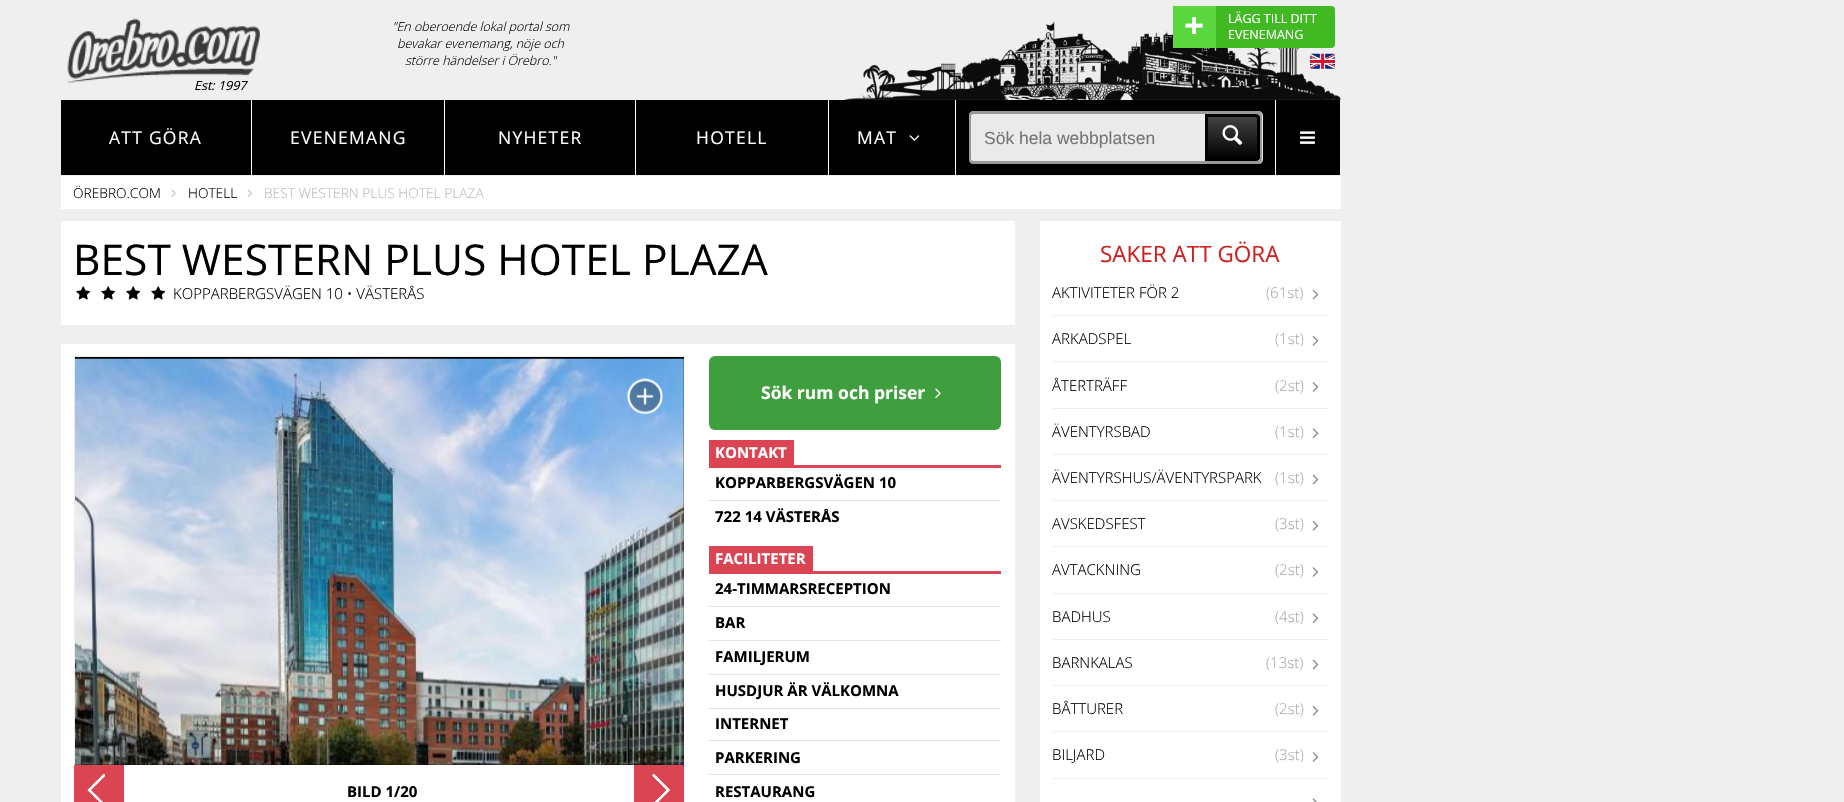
void draw(SkCanvas* canvas) {
    SkPaint paint;
    paint.setAntiAlias(true);
    auto spacedText = [&](const char* s, float x, float y, const SkFont& font, const SkPaint& ink, float letter, float word) {
        std::vector<SkGlyphID> glyphs(font.countText(s, strlen(s), SkTextEncoding::kUTF8));
        std::vector<float> xs(glyphs.size());
        font.textToGlyphs(s, strlen(s), SkTextEncoding::kUTF8, glyphs);
        font.getXPos(glyphs, xs, x);
        float extra = 0;
        for (size_t i = 0; i < glyphs.size(); i++) {
            xs[i] += extra;
            extra += letter + word * (glyphs[i] == font.unicharToGlyph(' '));
        }
        canvas->drawTextBlob(SkTextBlob::MakeFromPosHGlyphs(glyphs, xs, y, font), 0, 0, ink);
    };
    canvas->clear(0xFFEFEFEF);
    SkFont font1(fontMgr->matchFamilyStyle("Open Sans", SkFontStyle::Italic()), 12.5f);
    font1.setSubpixel(true);
    paint.setColor(0xFF000000);
    canvas->drawString("Est: 1997", 194, 90, font1, paint);
    canvas->drawImageRect(SkImages::DeferredFromEncodedData(SkData::MakeFromFileName("img1.png")), SkRect::MakeXYWH(67, 18, 193, 65), SkSamplingOptions());
    SkFont font2(fontMgr->matchFamilyStyle("Open Sans", SkFontStyle(300, SkFontStyle::kNormal_Width, SkFontStyle::kItalic_Slant)), 12.5f);
    font2.setSubpixel(true);
    canvas->drawString("\"En oberoende lokal portal som", 392, 31, font2, paint);
    canvas->drawString("bevakar evenemang, nöje och", 397, 48, font2, paint);
    canvas->drawString("större händelser i Örebro.\"", 405, 65, font2, paint);
    canvas->drawImageRect(SkImages::DeferredFromEncodedData(SkData::MakeFromFileName("img2.png")), SkRect::MakeXYWH(844, 21, 497, 79), SkSamplingOptions());
    paint.setColor(0xFF40B922);
    canvas->drawRoundRect(SkRect::MakeXYWH(1173, 6, 162, 42), 4, 4, paint);
    paint.setColor(0xFF5CD63E);
    canvas->drawRect(SkRect::MakeXYWH(1173, 6, 43, 42), paint);
    SkFont font3(fontMgr->matchFamilyStyle("Open Sans", SkFontStyle::Bold()), 35);
    font3.setSubpixel(true);
    paint.setColor(0xFFFFFFFF);
    canvas->drawString("+", 1184, 38, font3, paint);
    SkFont font4(fontMgr->matchFamilyStyle("Open Sans", SkFontStyle::Normal()), 12.5f);
    font4.setSubpixel(true);
    canvas->drawString("LÄGG TILL DITT", 1228, 23, font4, paint);
    canvas->drawString("EVENEMANG", 1228, 39, font4, paint);
    canvas->drawImageRect(SkImages::DeferredFromEncodedData(SkData::MakeFromFileName("img3.png")), SkRect::MakeXYWH(1310, 53, 25, 16), SkSamplingOptions());
    paint.setColor(0xFF000000);
    canvas->drawRect(SkRect::MakeXYWH(61, 100, 383, 75), paint);
    paint.setColor(0xFFFFFFFF);
    canvas->drawRect(SkRect::MakeXYWH(251, 100, 1, 75), paint);
    SkFont font5(fontMgr->matchFamilyStyle("Open Sans", SkFontStyle::Normal()), 17.5f);
    font5.setSubpixel(true);
    spacedText("ATT GÖRA", 109, 144, font5, paint, 1.25f, 0);
    canvas->drawRect(SkRect::MakeXYWH(444, 100, 1, 75), paint);
    spacedText("EVENEMANG", 290, 144, font5, paint, 1.25f, 0);
    paint.setColor(0xFF000000);
    canvas->drawRect(SkRect::MakeXYWH(445, 100, 190, 75), paint);
    paint.setColor(0xFFFFFFFF);
    canvas->drawRect(SkRect::MakeXYWH(635, 100, 1, 75), paint);
    spacedText("NYHETER", 498, 144, font5, paint, 1.25f, 0);
    paint.setColor(0xFF000000);
    canvas->drawRect(SkRect::MakeXYWH(636, 100, 192, 75), paint);
    paint.setColor(0xFFFFFFFF);
    canvas->drawRect(SkRect::MakeXYWH(828, 100, 1, 75), paint);
    spacedText("HOTELL", 696, 144, font5, paint, 1.25f, 0);
    paint.setColor(0xFF000000);
    canvas->drawRect(SkRect::MakeXYWH(829, 100, 126, 75), paint);
    paint.setColor(0xFFFFFFFF);
    canvas->drawRect(SkRect::MakeXYWH(955, 100, 1, 75), paint);
    spacedText("MAT", 857, 144, font5, paint, 1.25f, 0);
    canvas->drawImageRect(SkImages::DeferredFromEncodedData(SkData::MakeFromFileName("img4.png")), SkRect::MakeXYWH(909, 135, 11, 6), SkSamplingOptions());
    paint.setColor(0xFF000000);
    canvas->drawRect(SkRect::MakeXYWH(956, 100, 319, 75), paint);
    paint.setColor(0xFFFFFFFF);
    canvas->drawRect(SkRect::MakeXYWH(1275, 100, 1, 75), paint);
    paint.setColor(0xFFEAEAEA);
    canvas->drawPath(SkPathBuilder().moveTo(974, 111).lineTo(1205, 111).lineTo(1205, 164).lineTo(974, 164).cubicTo(971, 164, 969, 162, 969, 159).lineTo(969, 116).cubicTo(969, 113, 971, 111, 974, 111).close().detach(), paint);
    paint.setColor(0xFF999999);
    canvas->drawPath(SkPathBuilder(SkPathFillType::kEvenOdd).moveTo(974, 111).lineTo(1205, 111).lineTo(1205, 164).lineTo(974, 164).cubicTo(971, 164, 969, 162, 969, 159).lineTo(969, 116).cubicTo(969, 113, 971, 111, 974, 111).close().moveTo(974, 114).lineTo(1205, 114).lineTo(1205, 161).lineTo(974, 161).cubicTo(972, 161, 971, 160, 971, 159).lineTo(971, 116).cubicTo(971, 115, 972, 114, 974, 114).close().detach(), paint);
    SkFont font6(fontMgr->matchFamilyStyle("Liberation Sans", SkFontStyle::Normal()), 17.5f);
    font6.setSubpixel(true);
    paint.setColor(0xFF757575);
    canvas->drawString("Sök hela webbplatsen", 984, 144, font6, paint);
    paint.setColor(0xFFEAEAEA);
    canvas->drawPath(SkPathBuilder().moveTo(1205, 111).lineTo(1258, 111).cubicTo(1261, 111, 1263, 113, 1263, 116).lineTo(1263, 159).cubicTo(1263, 162, 1261, 164, 1258, 164).lineTo(1205, 164).close().detach(), paint);
    paint.setColor(0xFF999999);
    canvas->drawPath(SkPathBuilder(SkPathFillType::kEvenOdd).moveTo(1205, 111).lineTo(1258, 111).cubicTo(1260, 111, 1262, 113, 1262, 116).lineTo(1262, 159).cubicTo(1262, 162, 1260, 164, 1258, 164).lineTo(1205, 164).close().moveTo(1205, 114).lineTo(1258, 114).cubicTo(1259, 114, 1260, 115, 1260, 116).lineTo(1260, 159).cubicTo(1260, 160, 1259, 161, 1258, 161).lineTo(1205, 161).close().detach(), paint);
    {
        const SkColor colors[] = {0xFF444444, 0xFF000000};
        const float stops[] = {0, 1};
        const SkPoint ends[] = {{1233, 116}, {1233, 159}};
        paint.setShader(SkGradientShader::MakeLinear(ends, colors, stops, 2, SkTileMode::kClamp));
        paint.setAlpha(255);
    }
    canvas->drawRect(SkRect::MakeXYWH(1208, 116, 52, 43), paint);
    paint.setStyle(SkPaint::kStroke_Style);
    paint.setStrokeWidth(3);
    paint.setShader(nullptr);
    paint.setColor(0xFF000000);
    canvas->drawPath(SkPathBuilder().moveTo(1206.5f, 115.5f).lineTo(1256, 115.5f).cubicTo(1257.5f, 115.5f, 1258.5f, 116.5f, 1258.5f, 118).lineTo(1258.5f, 157).cubicTo(1258.5f, 158.5f, 1257.5f, 159.5f, 1256, 159.5f).lineTo(1206.5f, 159.5f).close().detach(), paint);
    canvas->drawImageRect(SkImages::DeferredFromEncodedData(SkData::MakeFromFileName("img5.png")), SkRect::MakeXYWH(1222, 125, 21, 20), SkSamplingOptions());
    paint.setStyle(SkPaint::kFill_Style);
    canvas->drawRect(SkRect::MakeXYWH(1276, 100, 64, 75), paint);
    canvas->drawImageRect(SkImages::DeferredFromEncodedData(SkData::MakeFromFileName("img6.png")), SkRect::MakeXYWH(1300, 131, 15, 13), SkSamplingOptions());
    paint.setColor(0xFFFFFFFF);
    canvas->drawRect(SkRect::MakeXYWH(61, 176, 1280, 33), paint);
    SkFont font7(fontMgr->matchFamilyStyle("Open Sans", SkFontStyle(300, SkFontStyle::kNormal_Width, SkFontStyle::kUpright_Slant)), 13.75f);
    font7.setSubpixel(true);
    paint.setColor(0xFF000000);
    canvas->drawString("ÖREBRO.COM", 73, 198, font7, paint);
    canvas->drawImageRect(SkImages::DeferredFromEncodedData(SkData::MakeFromFileName("img7.png")), SkRect::MakeXYWH(171, 189, 5, 8), SkSamplingOptions());
    canvas->drawString("HOTELL", 188, 198, font7, paint);
    canvas->drawImageRect(SkImages::DeferredFromEncodedData(SkData::MakeFromFileName("img8.png")), SkRect::MakeXYWH(247, 189, 5, 8), SkSamplingOptions());
    paint.setColor(0xFFBBBBBB);
    canvas->drawString("BEST WESTERN PLUS HOTEL PLAZA", 264, 198, font7, paint);
    paint.setColor(0xFFFFFFFF);
    canvas->drawRect(SkRect::MakeXYWH(61, 221, 954, 104), paint);
    SkFont font8(fontMgr->matchFamilyStyle("Open Sans", SkFontStyle::Normal()), 42.5f);
    font8.setSubpixel(true);
    paint.setColor(0xFF000000);
    canvas->drawString("BEST WESTERN PLUS HOTEL PLAZA", 73, 275, font8, paint);
    canvas->drawImageRect(SkImages::DeferredFromEncodedData(SkData::MakeFromFileName("img9.png")), SkRect::MakeXYWH(76, 286, 15, 14), SkSamplingOptions());
    canvas->drawImageRect(SkImages::DeferredFromEncodedData(SkData::MakeFromFileName("img9.png")), SkRect::MakeXYWH(101, 286, 15, 14), SkSamplingOptions());
    canvas->drawImageRect(SkImages::DeferredFromEncodedData(SkData::MakeFromFileName("img9.png")), SkRect::MakeXYWH(126, 286, 15, 14), SkSamplingOptions());
    canvas->drawImageRect(SkImages::DeferredFromEncodedData(SkData::MakeFromFileName("img9.png")), SkRect::MakeXYWH(151, 286, 15, 14), SkSamplingOptions());
    SkFont font9(fontMgr->matchFamilyStyle("Open Sans", SkFontStyle(300, SkFontStyle::kNormal_Width, SkFontStyle::kUpright_Slant)), 15);
    font9.setSubpixel(true);
    canvas->drawString("KOPPARBERGSVÄGEN 10 • VÄSTERÅS", 173, 299, font9, paint);
    paint.setColor(0xFFFFFFFF);
    canvas->drawRect(SkRect::MakeXYWH(61, 344, 954, 458), paint);
    paint.setColor(0xFF3F9F3F);
    canvas->drawRoundRect(SkRect::MakeXYWH(709, 356, 292, 74), 6, 6, paint);
    SkFont font10(fontMgr->matchFamilyStyle("Open Sans", SkFontStyle::Bold()), 17.5f);
    font10.setSubpixel(true);
    paint.setColor(0xFFFFFFFF);
    canvas->drawString("Sök rum och priser", 761, 399, font10, paint);
    canvas->drawImageRect(SkImages::DeferredFromEncodedData(SkData::MakeFromFileName("img10.png")), SkRect::MakeXYWH(935, 388, 6, 11), SkSamplingOptions());
    paint.setColor(0xFF000000);
    canvas->drawRect(SkRect::MakeXYWH(75, 357, 609, 408), paint);
    paint.setColor(0xFFEDEDED);
    canvas->drawRect(SkRect::MakeXYWH(74, 356, 610, 1), paint);
    canvas->drawRect(SkRect::MakeXYWH(74, 356, 1, 409), paint);
    canvas->drawImageRect(SkImages::DeferredFromEncodedData(SkData::MakeFromFileName("img11.png")), SkRect::MakeXYWH(75, 358, 609, 407), SkSamplingOptions());
    canvas->drawImageRect(SkImages::DeferredFromEncodedData(SkData::MakeFromFileName("img12.png")), SkRect::MakeXYWH(627, 378, 36, 37), SkSamplingOptions());
    paint.setColor(0xFFDA4453);
    canvas->drawRect(SkRect::MakeXYWH(74, 765, 50, 37), paint);
    canvas->drawImageRect(SkImages::DeferredFromEncodedData(SkData::MakeFromFileName("img13.png")), SkRect::MakeXYWH(87, 774, 18, 28), SkSamplingOptions());
    canvas->drawRect(SkRect::MakeXYWH(634, 765, 50, 37), paint);
    canvas->drawImageRect(SkImages::DeferredFromEncodedData(SkData::MakeFromFileName("img14.png")), SkRect::MakeXYWH(652, 774, 18, 28), SkSamplingOptions());
    SkFont font11(fontMgr->matchFamilyStyle("Open Sans", SkFontStyle::Bold()), 15);
    font11.setSubpixel(true);
    paint.setColor(0xFF000000);
    canvas->drawString("BILD 1/20", 347, 797, font11, paint);
    paint.setColor(0xFFDA4453);
    canvas->drawRect(SkRect::MakeXYWH(709, 465, 292, 3), paint);
    canvas->drawRect(SkRect::MakeXYWH(709, 440, 85, 25), paint);
    paint.setColor(0xFFFFFFFF);
    canvas->drawString("KONTAKT", 715, 458, font11, paint);
    paint.setColor(0xFFE5E5E5);
    canvas->drawRect(SkRect::MakeXYWH(709, 500, 292, 1), paint);
    paint.setColor(0xFF000000);
    canvas->drawString("KOPPARBERGSVÄGEN 10", 715, 488, font11, paint);
    canvas->drawString("722 14 VÄSTERÅS", 715, 522, font11, paint);
    paint.setColor(0xFFDA4453);
    canvas->drawRect(SkRect::MakeXYWH(709, 571, 292, 3), paint);
    canvas->drawRect(SkRect::MakeXYWH(709, 546, 104, 25), paint);
    paint.setColor(0xFFFFFFFF);
    canvas->drawString("FACILITETER", 715, 564, font11, paint);
    paint.setColor(0xFFE5E5E5);
    canvas->drawRect(SkRect::MakeXYWH(709, 606, 292, 1), paint);
    paint.setColor(0xFF000000);
    canvas->drawString("24-TIMMARSRECEPTION", 715, 594, font11, paint);
    paint.setColor(0xFFE5E5E5);
    canvas->drawRect(SkRect::MakeXYWH(709, 640, 292, 1), paint);
    paint.setColor(0xFF000000);
    canvas->drawString("BAR", 715, 628, font11, paint);
    paint.setColor(0xFFE5E5E5);
    canvas->drawRect(SkRect::MakeXYWH(709, 674, 292, 1), paint);
    paint.setColor(0xFF000000);
    canvas->drawString("FAMILJERUM", 715, 662, font11, paint);
    paint.setColor(0xFFE5E5E5);
    canvas->drawRect(SkRect::MakeXYWH(709, 708, 292, 1), paint);
    paint.setColor(0xFF000000);
    canvas->drawString("HUSDJUR ÄR VÄLKOMNA", 715, 696, font11, paint);
    paint.setColor(0xFFE5E5E5);
    canvas->drawRect(SkRect::MakeXYWH(709, 740, 292, 1), paint);
    paint.setColor(0xFF000000);
    canvas->drawString("INTERNET", 715, 729, font11, paint);
    paint.setColor(0xFFE5E5E5);
    canvas->drawRect(SkRect::MakeXYWH(709, 774, 292, 1), paint);
    paint.setColor(0xFF000000);
    canvas->drawString("PARKERING", 715, 763, font11, paint);
    canvas->drawString("RESTAURANG", 715, 797, font11, paint);
    paint.setColor(0xFFFFFFFF);
    canvas->drawRect(SkRect::MakeXYWH(1040, 221, 301, 581), paint);
    SkFont font12(fontMgr->matchFamilyStyle("Open Sans", SkFontStyle::Normal()), 22.5f);
    font12.setSubpixel(true);
    paint.setColor(0xFFCD201F);
    canvas->drawString("SAKER ATT GÖRA", 1100, 262, font12, paint);
    paint.setColor(0xFFEEEEEE);
    canvas->drawRect(SkRect::MakeXYWH(1053, 315, 276, 1), paint);
    paint.setColor(0xFF000000);
    canvas->drawString("AKTIVITETER FÖR 2", 1052, 298, font9, paint);
    paint.setColor(0xFFAAAAAA);
    canvas->drawString("(61st)", 1266, 298, font9, paint);
    canvas->drawImageRect(SkImages::DeferredFromEncodedData(SkData::MakeFromFileName("img15.png")), SkRect::MakeXYWH(1312, 289, 7, 11), SkSamplingOptions());
    paint.setColor(0xFFEEEEEE);
    canvas->drawRect(SkRect::MakeXYWH(1053, 361, 276, 1), paint);
    paint.setColor(0xFF000000);
    canvas->drawString("ARKADSPEL", 1052, 344, font9, paint);
    paint.setColor(0xFFAAAAAA);
    canvas->drawString("(1st)", 1275, 344, font9, paint);
    canvas->drawImageRect(SkImages::DeferredFromEncodedData(SkData::MakeFromFileName("img16.png")), SkRect::MakeXYWH(1312, 335, 7, 11), SkSamplingOptions());
    paint.setColor(0xFFEEEEEE);
    canvas->drawRect(SkRect::MakeXYWH(1053, 408, 276, 1), paint);
    paint.setColor(0xFF000000);
    canvas->drawString("ÅTERTRÄFF", 1052, 391, font9, paint);
    paint.setColor(0xFFAAAAAA);
    canvas->drawString("(2st)", 1275, 391, font9, paint);
    canvas->drawImageRect(SkImages::DeferredFromEncodedData(SkData::MakeFromFileName("img17.png")), SkRect::MakeXYWH(1312, 382, 7, 10), SkSamplingOptions());
    paint.setColor(0xFFEEEEEE);
    canvas->drawRect(SkRect::MakeXYWH(1053, 454, 276, 1), paint);
    paint.setColor(0xFF000000);
    canvas->drawString("ÄVENTYRSBAD", 1052, 437, font9, paint);
    paint.setColor(0xFFAAAAAA);
    canvas->drawString("(1st)", 1275, 437, font9, paint);
    canvas->drawImageRect(SkImages::DeferredFromEncodedData(SkData::MakeFromFileName("img18.png")), SkRect::MakeXYWH(1312, 428, 7, 11), SkSamplingOptions());
    paint.setColor(0xFFEEEEEE);
    canvas->drawRect(SkRect::MakeXYWH(1053, 500, 276, 1), paint);
    paint.setColor(0xFF000000);
    canvas->drawString("ÄVENTYRSHUS/ÄVENTYRSPARK", 1052, 483, font9, paint);
    paint.setColor(0xFFAAAAAA);
    canvas->drawString("(1st)", 1275, 483, font9, paint);
    canvas->drawImageRect(SkImages::DeferredFromEncodedData(SkData::MakeFromFileName("img15.png")), SkRect::MakeXYWH(1312, 474, 7, 11), SkSamplingOptions());
    paint.setColor(0xFFEEEEEE);
    canvas->drawRect(SkRect::MakeXYWH(1053, 546, 276, 1), paint);
    paint.setColor(0xFF000000);
    canvas->drawString("AVSKEDSFEST", 1052, 529, font9, paint);
    paint.setColor(0xFFAAAAAA);
    canvas->drawString("(3st)", 1275, 529, font9, paint);
    canvas->drawImageRect(SkImages::DeferredFromEncodedData(SkData::MakeFromFileName("img16.png")), SkRect::MakeXYWH(1312, 520, 7, 11), SkSamplingOptions());
    paint.setColor(0xFFEEEEEE);
    canvas->drawRect(SkRect::MakeXYWH(1053, 593, 276, 1), paint);
    paint.setColor(0xFF000000);
    canvas->drawString("AVTACKNING", 1052, 575, font9, paint);
    paint.setColor(0xFFAAAAAA);
    canvas->drawString("(2st)", 1275, 575, font9, paint);
    canvas->drawImageRect(SkImages::DeferredFromEncodedData(SkData::MakeFromFileName("img17.png")), SkRect::MakeXYWH(1312, 567, 7, 10), SkSamplingOptions());
    paint.setColor(0xFFEEEEEE);
    canvas->drawRect(SkRect::MakeXYWH(1053, 639, 276, 1), paint);
    paint.setColor(0xFF000000);
    canvas->drawString("BADHUS", 1052, 622, font9, paint);
    paint.setColor(0xFFAAAAAA);
    canvas->drawString("(4st)", 1275, 622, font9, paint);
    canvas->drawImageRect(SkImages::DeferredFromEncodedData(SkData::MakeFromFileName("img18.png")), SkRect::MakeXYWH(1312, 613, 7, 11), SkSamplingOptions());
    paint.setColor(0xFFEEEEEE);
    canvas->drawRect(SkRect::MakeXYWH(1053, 685, 276, 1), paint);
    paint.setColor(0xFF000000);
    canvas->drawString("BARNKALAS", 1052, 668, font9, paint);
    paint.setColor(0xFFAAAAAA);
    canvas->drawString("(13st)", 1266, 668, font9, paint);
    canvas->drawImageRect(SkImages::DeferredFromEncodedData(SkData::MakeFromFileName("img15.png")), SkRect::MakeXYWH(1312, 659, 7, 11), SkSamplingOptions());
    paint.setColor(0xFFEEEEEE);
    canvas->drawRect(SkRect::MakeXYWH(1053, 731, 276, 1), paint);
    paint.setColor(0xFF000000);
    canvas->drawString("BÅTTURER", 1052, 714, font9, paint);
    paint.setColor(0xFFAAAAAA);
    canvas->drawString("(2st)", 1275, 714, font9, paint);
    canvas->drawImageRect(SkImages::DeferredFromEncodedData(SkData::MakeFromFileName("img16.png")), SkRect::MakeXYWH(1312, 705, 7, 11), SkSamplingOptions());
    paint.setColor(0xFFEEEEEE);
    canvas->drawRect(SkRect::MakeXYWH(1053, 778, 276, 1), paint);
    paint.setColor(0xFF000000);
    canvas->drawString("BILJARD", 1052, 760, font9, paint);
    paint.setColor(0xFFAAAAAA);
    canvas->drawString("(3st)", 1275, 760, font9, paint);
    canvas->drawImageRect(SkImages::DeferredFromEncodedData(SkData::MakeFromFileName("img17.png")), SkRect::MakeXYWH(1312, 752, 7, 10), SkSamplingOptions());
    canvas->drawImageRect(SkImages::DeferredFromEncodedData(SkData::MakeFromFileName("img19.png")), SkRect::MakeXYWH(1312, 798, 5, 4), SkSamplingOptions());
}
